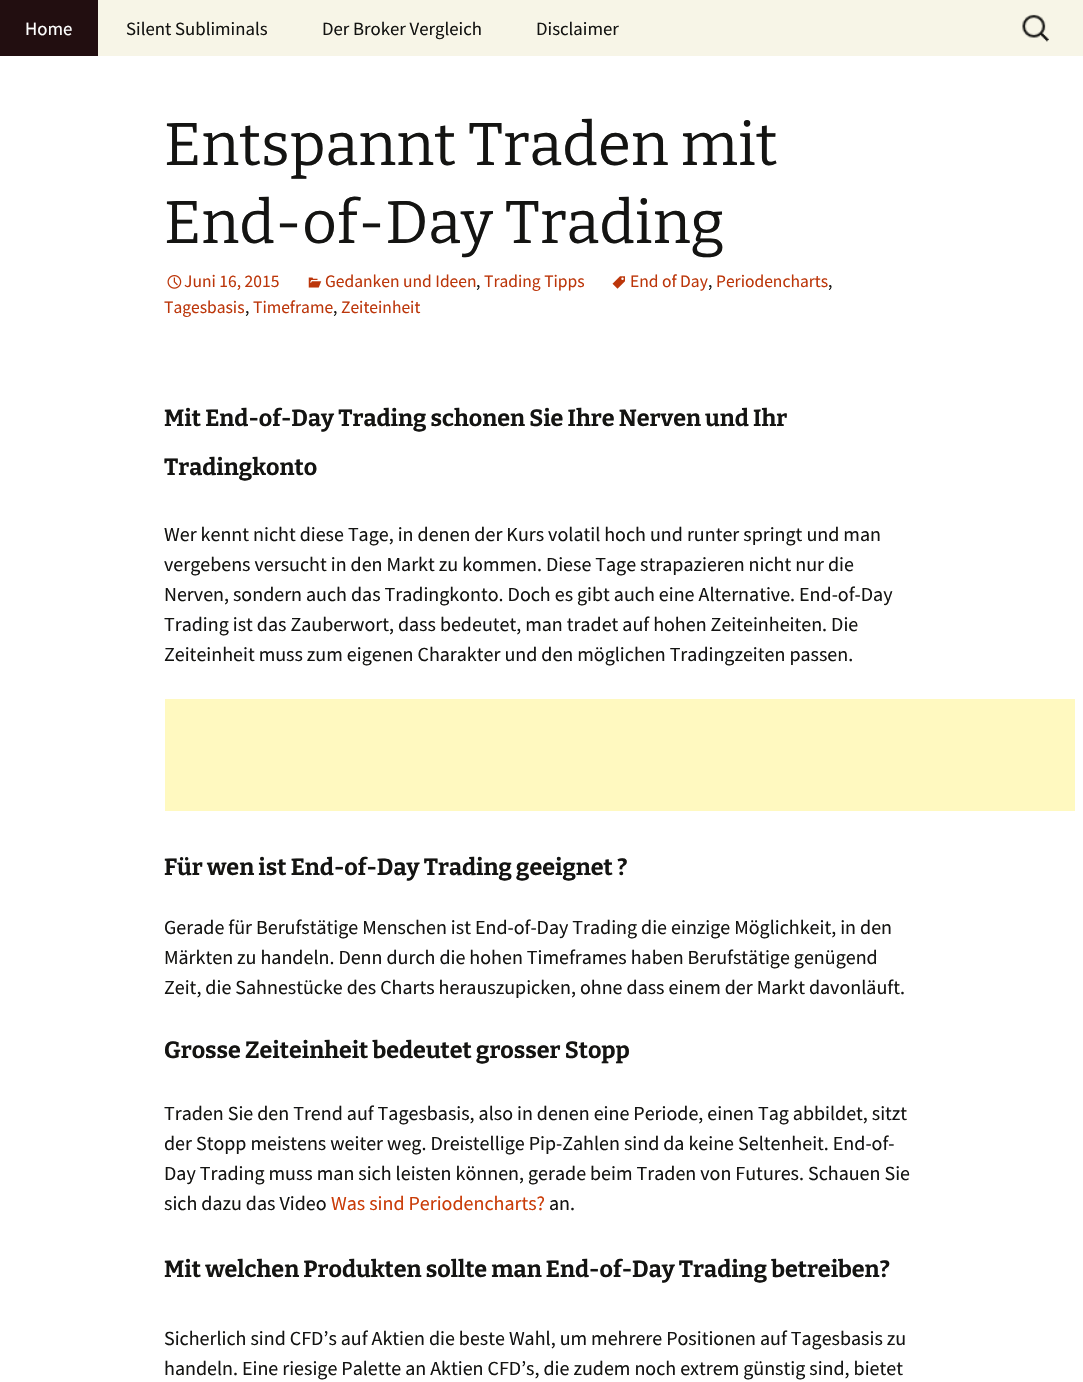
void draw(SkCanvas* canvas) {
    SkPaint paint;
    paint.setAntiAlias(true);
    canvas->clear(0xFFFFFFFF);
    paint.setColor(0xFFF7F5E7);
    canvas->drawRect(SkRect::MakeXYWH(98, 0, 985, 56), paint);
    paint.setColor(0xFF220E10);
    canvas->drawRect(SkRect::MakeXYWH(0, 0, 98, 56), paint);
    SkFont font1(fontMgr->matchFamilyStyle("Source Sans Pro", SkFontStyle::Normal()), 18.75f);
    font1.setSubpixel(true);
    paint.setColor(0xFFFFFFFF);
    canvas->drawString("Home", 25, 35, font1, paint);
    paint.setColor(0xFF141412);
    canvas->drawString("Silent Subliminals", 126, 35, font1, paint);
    canvas->drawString("Der Broker Vergleich", 322, 35, font1, paint);
    canvas->drawString("Disclaimer", 536, 35, font1, paint);
    canvas->drawImageRect(SkImages::DeferredFromEncodedData(SkData::MakeFromFileName("img1.png")), SkRect::MakeXYWH(1022, 14, 27, 28), SkSamplingOptions());
    SkFont font2(fontMgr->matchFamilyStyle("Bitter", SkFontStyle::Normal()), 60);
    font2.setSubpixel(true);
    canvas->drawString("Entspannt Traden mit", 164, 165, font2, paint);
    canvas->drawString("End-of-Day Trading", 164, 243, font2, paint);
    canvas->drawImageRect(SkImages::DeferredFromEncodedData(SkData::MakeFromFileName("img2.png")), SkRect::MakeXYWH(612, 276, 13, 13), SkSamplingOptions());
    SkFont font3(fontMgr->matchFamilyStyle("Source Sans Pro", SkFontStyle::Normal()), 17.5f);
    font3.setSubpixel(true);
    paint.setColor(0xFFBC360A);
    canvas->drawString("End of Day", 630, 287, font3, paint);
    paint.setColor(0xFF141412);
    canvas->drawString(",", 708, 287, font3, paint);
    paint.setColor(0xFFBC360A);
    canvas->drawString("Periodencharts", 716, 287, font3, paint);
    paint.setColor(0xFF141412);
    canvas->drawString(",", 828, 287, font3, paint);
    paint.setColor(0xFFBC360A);
    canvas->drawString("Tagesbasis", 164, 313, font3, paint);
    paint.setColor(0xFF141412);
    canvas->drawString(",", 245, 313, font3, paint);
    paint.setColor(0xFFBC360A);
    canvas->drawString("Timeframe", 253, 313, font3, paint);
    paint.setColor(0xFF141412);
    canvas->drawString(",", 333, 313, font3, paint);
    paint.setColor(0xFFBC360A);
    canvas->drawString("Zeiteinheit", 341, 313, font3, paint);
    canvas->drawImageRect(SkImages::DeferredFromEncodedData(SkData::MakeFromFileName("img3.png")), SkRect::MakeXYWH(167, 275, 15, 14), SkSamplingOptions());
    canvas->drawString("Juni 16, 2015", 184, 287, font3, paint);
    canvas->drawImageRect(SkImages::DeferredFromEncodedData(SkData::MakeFromFileName("img4.png")), SkRect::MakeXYWH(308, 277, 14, 11), SkSamplingOptions());
    canvas->drawString("Gedanken und Ideen", 325, 287, font3, paint);
    paint.setColor(0xFF141412);
    canvas->drawString(",", 476, 287, font3, paint);
    paint.setColor(0xFFBC360A);
    canvas->drawString("Trading Tipps", 484, 287, font3, paint);
    SkFont font4(fontMgr->matchFamilyStyle("Bitter", SkFontStyle::Bold()), 23.3f);
    font4.setSubpixel(true);
    paint.setColor(0xFF141412);
    canvas->drawString("Mit End-of-Day Trading schonen Sie Ihre Nerven und Ihr", 164, 426, font4, paint);
    canvas->drawString("Tradingkonto", 164, 475, font4, paint);
    SkFont font5(fontMgr->matchFamilyStyle("Source Sans Pro", SkFontStyle::Normal()), 20);
    font5.setSubpixel(true);
    canvas->drawString("Wer kennt nicht diese Tage, in denen der Kurs volatil hoch und runter springt und man", 164, 541, font5, paint);
    canvas->drawString("vergebens versucht in den Markt zu kommen. Diese Tage strapazieren nicht nur die", 164, 571, font5, paint);
    canvas->drawString("Nerven, sondern auch das Tradingkonto. Doch es gibt auch eine Alternative. End-of-Day", 164, 601, font5, paint);
    canvas->drawString("Trading ist das Zauberwort, dass bedeutet, man tradet auf hohen Zeiteinheiten. Die", 164, 631, font5, paint);
    canvas->drawString("Zeiteinheit muss zum eigenen Charakter und den möglichen Tradingzeiten passen.", 164, 661, font5, paint);
    paint.setColor(0xFFFFF9C0);
    canvas->drawRect(SkRect::MakeXYWH(165, 699, 910, 112), paint);
    paint.setColor(0xFF141412);
    canvas->drawString("Für wen ist End-of-Day Trading geeignet ?", 164, 875, font4, paint);
    canvas->drawString("Gerade für Berufstätige Menschen ist End-of-Day Trading die einzige Möglichkeit, in den", 164, 934, font5, paint);
    canvas->drawString("Märkten zu handeln. Denn durch die hohen Timeframes haben Berufstätige genügend", 164, 964, font5, paint);
    canvas->drawString("Zeit, die Sahnestücke des Charts herauszupicken, ohne dass einem der Markt davonläuft.", 164, 994, font5, paint);
    canvas->drawString("Grosse Zeiteinheit bedeutet grosser Stopp", 164, 1058, font4, paint);
    canvas->drawString("Traden Sie den Trend auf Tagesbasis, also in denen eine Periode, einen Tag abbildet, sitzt", 164, 1120, font5, paint);
    canvas->drawString("der Stopp meistens weiter weg. Dreistellige Pip-Zahlen sind da keine Seltenheit. End-of-", 164, 1150, font5, paint);
    canvas->drawString("Day Trading muss man sich leisten können, gerade beim Traden von Futures. Schauen Sie", 164, 1180, font5, paint);
    canvas->drawString("sich dazu das Video", 164, 1210, font5, paint);
    paint.setColor(0xFFCA3C08);
    canvas->drawString("Was sind Periodencharts?", 331, 1210, font5, paint);
    paint.setColor(0xFF141412);
    canvas->drawString("an.", 549, 1210, font5, paint);
    canvas->drawString("Mit welchen Produkten sollte man End-of-Day Trading betreiben?", 164, 1277, font4, paint);
    canvas->drawString("Sicherlich sind CFD’s auf Aktien die beste Wahl, um mehrere Positionen auf Tagesbasis zu", 164, 1345, font5, paint);
    canvas->drawString("handeln. Eine riesige Palette an Aktien CFD’s, die zudem noch extrem günstig sind, bietet", 164, 1375, font5, paint);
}
